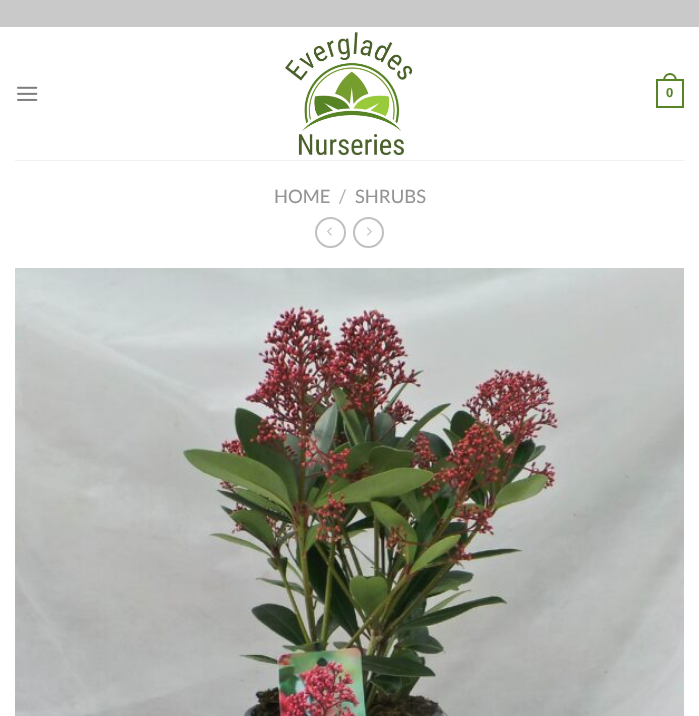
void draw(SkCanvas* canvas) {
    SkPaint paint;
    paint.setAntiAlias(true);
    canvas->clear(0xFFFFFFFF);
    paint.setColor(0xFFC9C9C9);
    canvas->drawRect(SkRect::MakeXYWH(0, 0, 699, 27), paint);
    canvas->drawImageRect(SkImages::DeferredFromEncodedData(SkData::MakeFromFileName("img1.png")), SkRect::MakeXYWH(17, 86, 21, 15), SkSamplingOptions());
    canvas->drawImageRect(SkImages::DeferredFromEncodedData(SkData::MakeFromFileName("img2.png")), SkRect::MakeXYWH(285, 32, 128, 124), SkSamplingOptions());
    paint.setStyle(SkPaint::kStroke_Style);
    paint.setStrokeWidth(2);
    paint.setColor(0xFF578425);
    canvas->drawRect(SkRect::MakeXYWH(657, 80, 26, 27), paint);
    paint.setStyle(SkPaint::kFill_Style);
    canvas->drawPath(SkPathBuilder(SkPathFillType::kEvenOdd).moveTo(670, 73).cubicTo(674.5f, 73, 677, 77, 677, 81).lineTo(663, 81).cubicTo(663, 77, 665.5f, 73, 670, 73).close().moveTo(670, 75).cubicTo(673.5f, 75, 675, 78, 675, 81).lineTo(665, 81).cubicTo(665, 78, 666.5f, 75, 670, 75).close().detach(), paint);
    SkFont font1(fontMgr->matchFamilyStyle("Liberation Sans", SkFontStyle::Bold()), 13);
    font1.setSubpixel(true);
    canvas->drawString("0", 666, 97, font1, paint);
    paint.setColor(0xFFF1F1F1);
    canvas->drawRect(SkRect::MakeXYWH(15, 160, 669, 1), paint);
    SkFont font2(fontMgr->matchFamilyStyle("Lato", SkFontStyle::Normal()), 18.5f);
    font2.setSubpixel(true);
    paint.setColor(0xFF949494);
    canvas->drawString("HOME", 274, 203, font2, paint);
    paint.setColor(0xFFB2B2B2);
    canvas->drawString("/", 339, 203, font2, paint);
    paint.setColor(0xFF949494);
    canvas->drawString("SHRUBS", 355, 203, font2, paint);
    paint.setStyle(SkPaint::kStroke_Style);
    paint.setColor(0xFFC0C0C0);
    canvas->drawCircle(330.5f, 232.5f, 14.5f, paint);
    canvas->drawImageRect(SkImages::DeferredFromEncodedData(SkData::MakeFromFileName("img3.png")), SkRect::MakeXYWH(327, 227, 5, 9), SkSamplingOptions());
    canvas->drawCircle(368.5f, 232.5f, 14.5f, paint);
    canvas->drawImageRect(SkImages::DeferredFromEncodedData(SkData::MakeFromFileName("img4.png")), SkRect::MakeXYWH(367, 227, 5, 9), SkSamplingOptions());
    canvas->drawImageRect(SkImages::DeferredFromEncodedData(SkData::MakeFromFileName("img5.png")), SkRect::MakeXYWH(15, 268, 669, 448), SkSamplingOptions());
}
